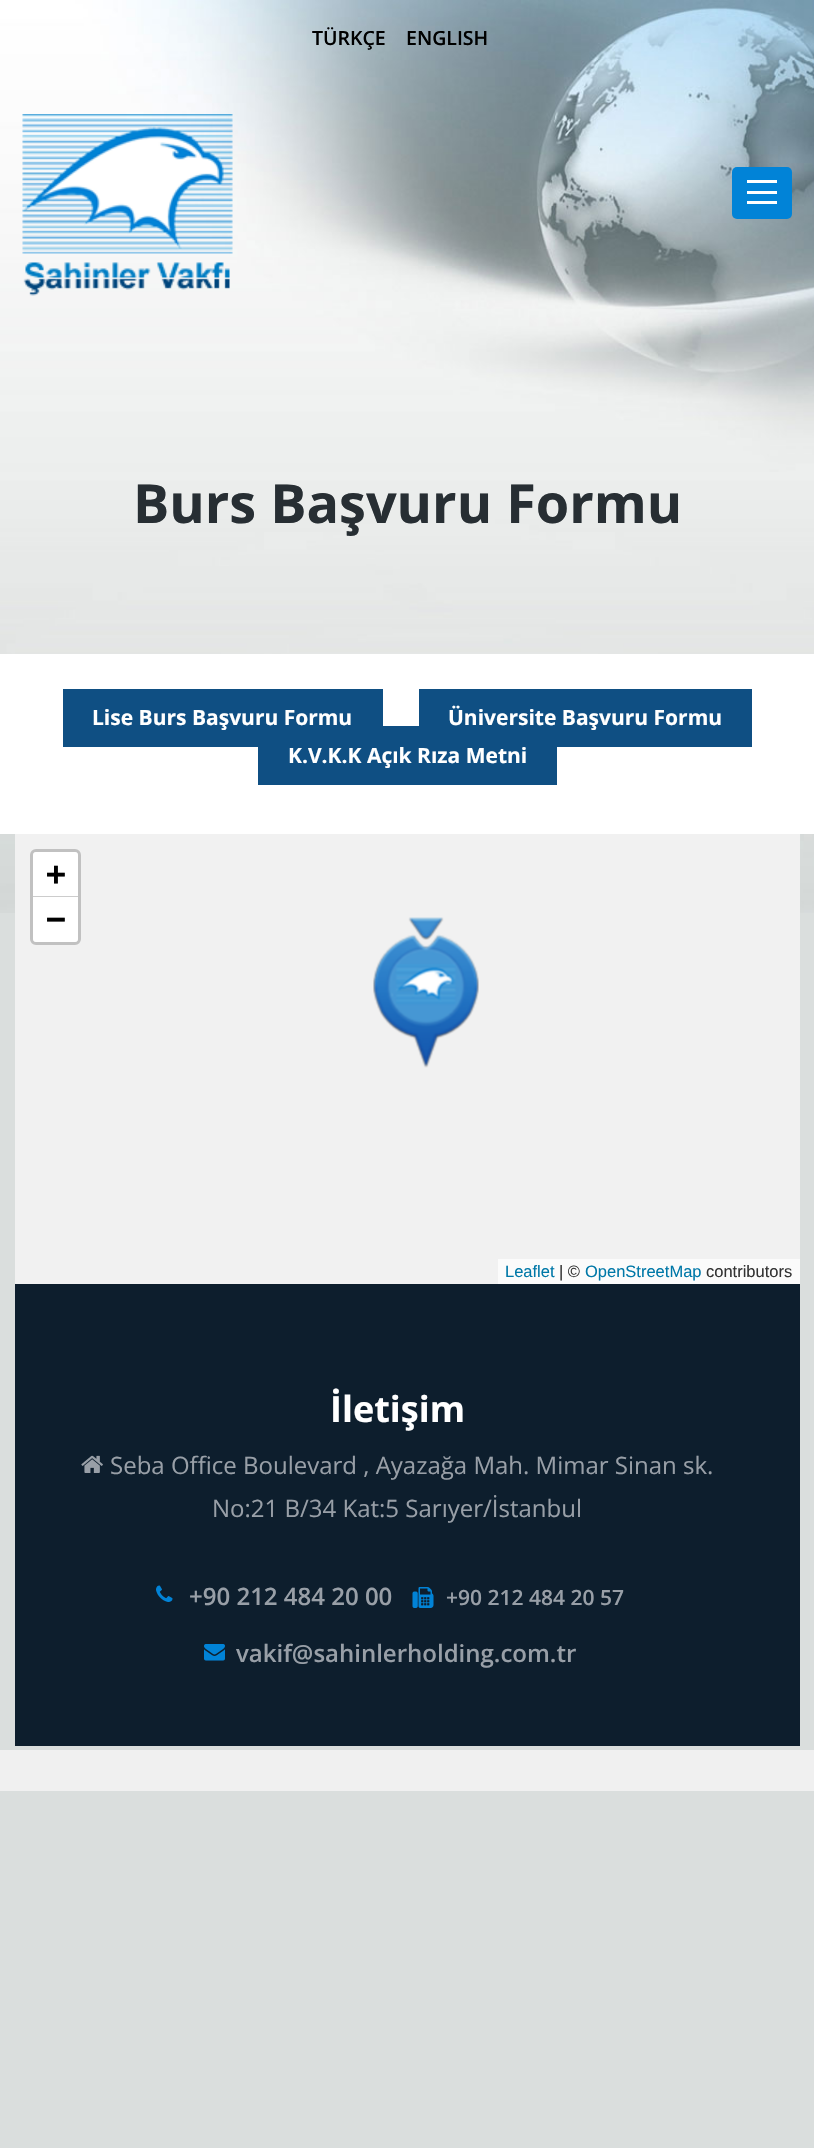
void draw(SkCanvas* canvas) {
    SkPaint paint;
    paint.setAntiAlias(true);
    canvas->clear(0xFFDADEDD);
    canvas->drawImageRect(SkImages::DeferredFromEncodedData(SkData::MakeFromFileName("img1.png")), SkRect::MakeXYWH(0, 0, 814, 913), SkSamplingOptions());
    SkFont font1(fontMgr->matchFamilyStyle("Open Sans", SkFontStyle(600, SkFontStyle::kNormal_Width, SkFontStyle::kUpright_Slant)), 19.5f);
    font1.setSubpixel(true);
    paint.setColor(0xFF000000);
    canvas->drawString("TÜRKÇE", 312, 45, font1, paint);
    canvas->drawString("ENGLISH", 406, 45, font1, paint);
    canvas->drawImageRect(SkImages::DeferredFromEncodedData(SkData::MakeFromFileName("img2.png")), SkRect::MakeXYWH(22, 114, 211, 182), SkSamplingOptions());
    paint.setColor(0xFF0183D7);
    canvas->drawRoundRect(SkRect::MakeXYWH(732, 167, 60, 52), 5, 5, paint);
    paint.setColor(0xFFFFFFFF);
    canvas->drawRect(SkRect::MakeXYWH(747, 180, 30, 3), paint);
    canvas->drawRect(SkRect::MakeXYWH(747, 191, 30, 3), paint);
    canvas->drawRect(SkRect::MakeXYWH(747, 201, 30, 3), paint);
    SkFont font2(fontMgr->matchFamilyStyle("Open Sans", SkFontStyle::Bold()), 54);
    font2.setSubpixel(true);
    paint.setColor(0xFF272E33);
    canvas->drawString("Burs Başvuru Formu", 133, 523, font2, paint);
    paint.setColor(0xFFFFFFFF);
    canvas->drawRect(SkRect::MakeXYWH(0, 654, 814, 180), paint);
    paint.setColor(0xFF0F4F83);
    canvas->drawRect(SkRect::MakeXYWH(63, 689, 320, 58), paint);
    SkFont font3(fontMgr->matchFamilyStyle("Open Sans", SkFontStyle::Bold()), 21);
    font3.setSubpixel(true);
    paint.setColor(0xFFFFFFFF);
    canvas->drawString("Lise Burs Başvuru Formu", 92, 725, font3, paint);
    paint.setColor(0xFF0F4F83);
    canvas->drawRect(SkRect::MakeXYWH(419, 689, 333, 58), paint);
    paint.setColor(0xFFFFFFFF);
    canvas->drawString("Üniversite Başvuru Formu", 448, 725, font3, paint);
    paint.setColor(0xFF0F4F83);
    canvas->drawRect(SkRect::MakeXYWH(258, 726, 299, 59), paint);
    paint.setColor(0xFFFFFFFF);
    canvas->drawString("K.V.K.K Açık Rıza Metni", 288, 763, font3, paint);
    paint.setColor(0xFFF1F1F1);
    canvas->drawRect(SkRect::MakeXYWH(15, 834, 785, 450), paint);
    paint.setStyle(SkPaint::kStroke_Style);
    paint.setStrokeWidth(3);
    paint.setColor(0xFFC1C1C1);
    canvas->drawRoundRect(SkRect::MakeXYWH(31.5f, 850.5f, 48, 93), 4.5f, 4.5f, paint);
    paint.setStyle(SkPaint::kFill_Style);
    paint.setColor(0xFFFFFFFF);
    canvas->drawPath(SkPathBuilder().moveTo(36, 852).lineTo(75, 852).cubicTo(76.5f, 852, 78, 853.5f, 78, 855).lineTo(78, 897).lineTo(33, 897).lineTo(33, 855).cubicTo(33, 853.5f, 34.5f, 852, 36, 852).close().detach(), paint);
    paint.setColor(0xFFCCCCCC);
    canvas->drawRect(SkRect::MakeXYWH(33, 896, 45, 1), paint);
    SkFont font4(fontMgr->matchFamilyStyle("DejaVu Sans Mono", SkFontStyle::Bold()), 33);
    font4.setSubpixel(true);
    paint.setColor(0xFF000000);
    canvas->drawString("+", 46, 885, font4, paint);
    paint.setColor(0xFFFFFFFF);
    canvas->drawPath(SkPathBuilder().moveTo(33, 897).lineTo(78, 897).lineTo(78, 939).cubicTo(78, 940.5f, 76.5f, 942, 75, 942).lineTo(36, 942).cubicTo(34.5f, 942, 33, 940.5f, 33, 939).close().detach(), paint);
    paint.setColor(0xFF000000);
    canvas->drawString("−", 46, 930, font4, paint);
    paint.setColor(0xFFFBFBFB);
    canvas->drawRect(SkRect::MakeXYWH(498, 1259, 302, 25), paint);
    SkFont font5(fontMgr->matchFamilyStyle("Liberation Sans", SkFontStyle::Normal()), 16.5f);
    font5.setSubpixel(true);
    paint.setColor(0xFF0078A8);
    canvas->drawString("Leaflet", 505, 1277, font5, paint);
    paint.setColor(0xFF333333);
    canvas->drawString("| ©", 559, 1277, font5, paint);
    paint.setColor(0xFF0078A8);
    canvas->drawString("OpenStreetMap", 585, 1277, font5, paint);
    paint.setColor(0xFF333333);
    canvas->drawString("contributors", 706, 1277, font5, paint);
    canvas->drawImageRect(SkImages::DeferredFromEncodedData(SkData::MakeFromFileName("img3.png")), SkRect::MakeXYWH(373, 917, 106, 151), SkSamplingOptions());
    paint.setColor(0xFF0D1E2D);
    canvas->drawRect(SkRect::MakeXYWH(15, 1284, 785, 462), paint);
    SkFont font6(fontMgr->matchFamilyStyle("Open Sans", SkFontStyle::Bold()), 36);
    font6.setSubpixel(true);
    paint.setColor(0xFFFFFFFF);
    canvas->drawString("İletişim", 330, 1422, font6, paint);
    canvas->drawImageRect(SkImages::DeferredFromEncodedData(SkData::MakeFromFileName("img4.png")), SkRect::MakeXYWH(81, 1455, 22, 18), SkSamplingOptions());
    SkFont font7(fontMgr->matchFamilyStyle("Open Sans", SkFontStyle::Normal()), 24);
    font7.setSubpixel(true);
    paint.setColor(0xFF989FA7);
    canvas->drawString("Seba Office Boulevard , Ayazağa Mah. Mimar Sinan sk.", 110, 1474, font7, paint);
    canvas->drawString("No:21 B/34 Kat:5 Sarıyer/İstanbul", 212, 1517, font7, paint);
    canvas->drawImageRect(SkImages::DeferredFromEncodedData(SkData::MakeFromFileName("img5.png")), SkRect::MakeXYWH(156, 1585, 17, 17), SkSamplingOptions());
    SkFont font8(fontMgr->matchFamilyStyle("Open Sans", SkFontStyle(600, SkFontStyle::kNormal_Width, SkFontStyle::kUpright_Slant)), 24);
    font8.setSubpixel(true);
    canvas->drawString("+90 212 484 20 00", 189, 1605, font8, paint);
    canvas->drawImageRect(SkImages::DeferredFromEncodedData(SkData::MakeFromFileName("img6.png")), SkRect::MakeXYWH(412, 1587, 22, 21), SkSamplingOptions());
    SkFont font9(fontMgr->matchFamilyStyle("Open Sans", SkFontStyle(600, SkFontStyle::kNormal_Width, SkFontStyle::kUpright_Slant)), 21);
    font9.setSubpixel(true);
    canvas->drawString("+90 212 484 20 57", 446, 1605, font9, paint);
    canvas->drawImageRect(SkImages::DeferredFromEncodedData(SkData::MakeFromFileName("img7.png")), SkRect::MakeXYWH(204, 1644, 21, 17), SkSamplingOptions());
    canvas->drawString("vakif@sahinlerholding.com.tr", 236, 1662, font8, paint);
    paint.setColor(0xFFF0F0F0);
    canvas->drawRect(SkRect::MakeXYWH(0, 1750, 814, 41), paint);
}
